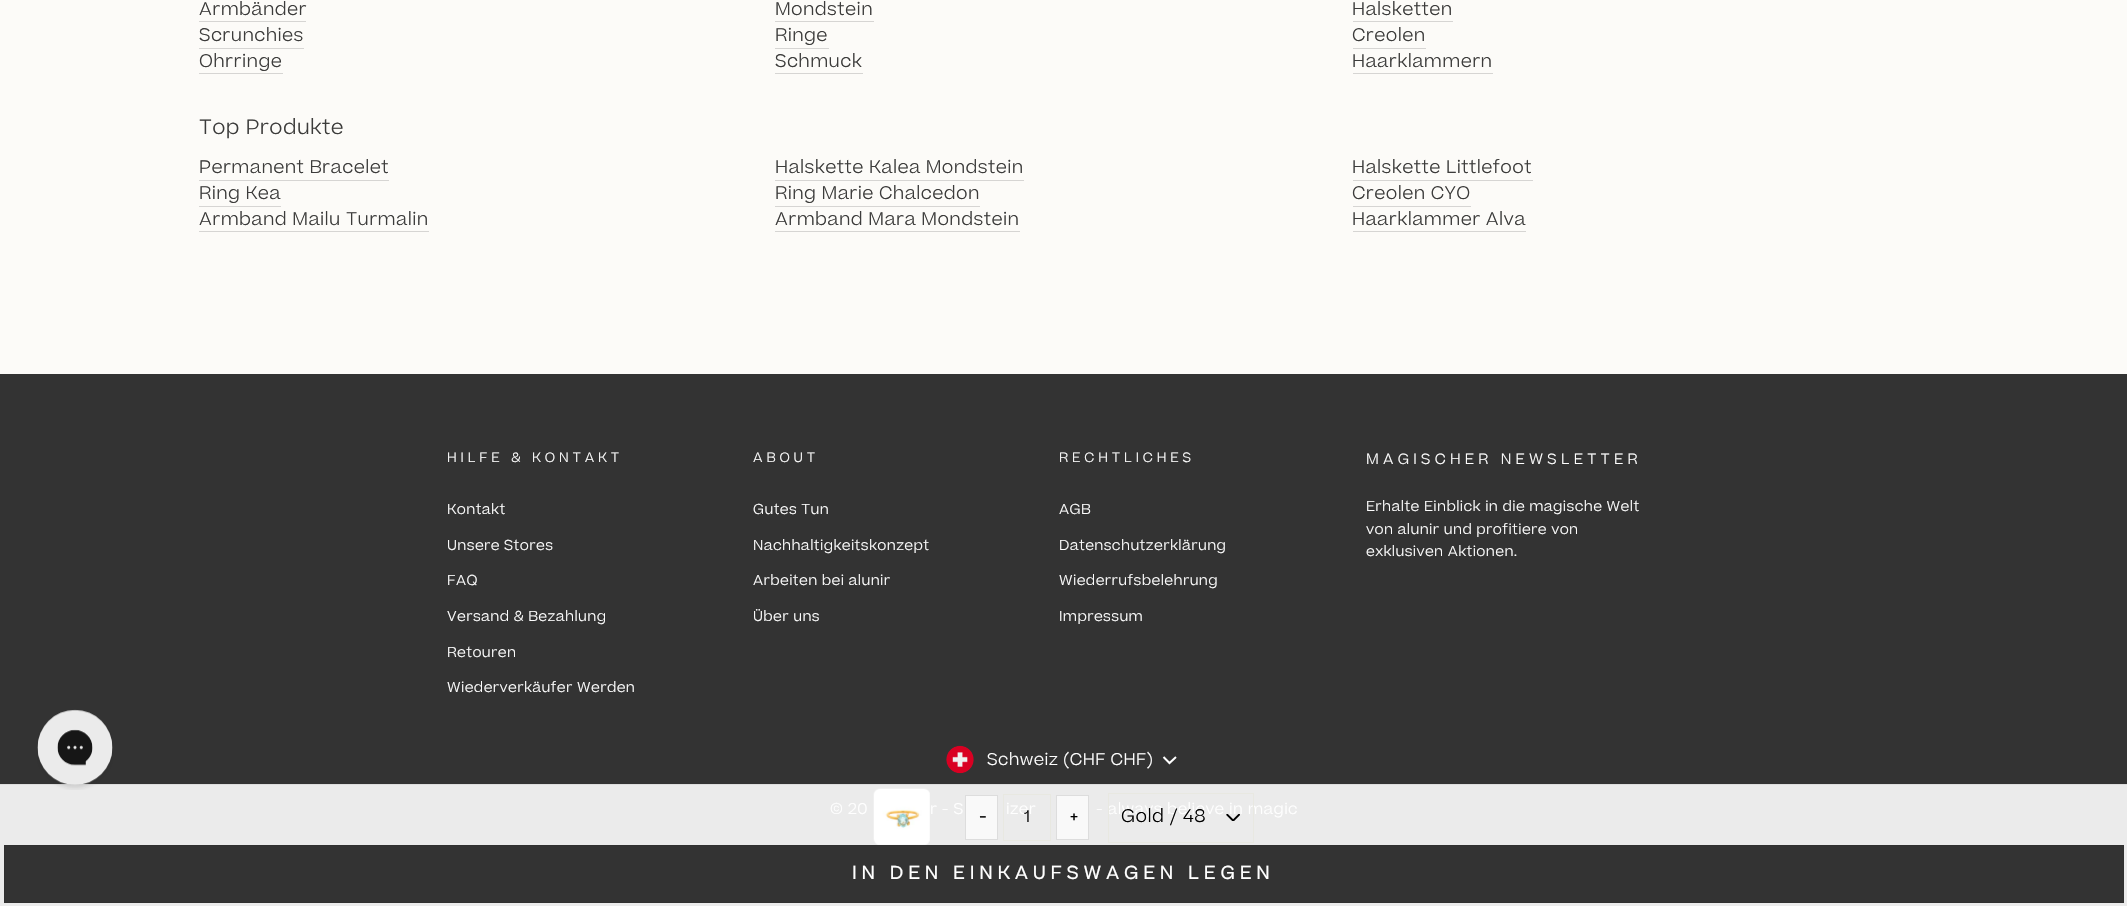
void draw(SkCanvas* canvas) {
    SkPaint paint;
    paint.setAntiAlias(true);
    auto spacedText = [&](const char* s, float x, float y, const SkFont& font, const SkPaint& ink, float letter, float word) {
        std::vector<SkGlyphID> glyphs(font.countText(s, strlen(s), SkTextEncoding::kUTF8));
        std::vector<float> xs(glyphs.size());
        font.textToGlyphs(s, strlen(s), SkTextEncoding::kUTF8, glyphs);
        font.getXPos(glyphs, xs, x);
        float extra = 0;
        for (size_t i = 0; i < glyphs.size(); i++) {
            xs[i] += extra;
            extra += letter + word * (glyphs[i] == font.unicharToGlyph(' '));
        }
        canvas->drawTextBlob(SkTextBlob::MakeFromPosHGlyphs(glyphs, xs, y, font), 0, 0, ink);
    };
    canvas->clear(0xFFFCFBF8);
    paint.setColor(0xFF333333);
    canvas->drawRect(SkRect::MakeXYWH(0, 374, 2127, 410), paint);
    paint.setColor(0xFFEBEBEB);
    canvas->drawRect(SkRect::MakeXYWH(0, 785, 2127, 121), paint);
    paint.setColor(0xFFDDDDDD);
    canvas->drawRect(SkRect::MakeXYWH(0, 784, 2127, 1), paint);
    canvas->drawImageRect(SkImages::DeferredFromEncodedData(SkData::MakeFromFileName("img1.png")), SkRect::MakeXYWH(37, 709, 76, 81), SkSamplingOptions());
    paint.setColor(0xFFD6D5D3);
    canvas->drawRect(SkRect::MakeXYWH(199, 21, 107, 1), paint);
    SkFont font1(fontMgr->matchFamilyStyle("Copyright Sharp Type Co", SkFontStyle(300, SkFontStyle::kNormal_Width, SkFontStyle::kUpright_Slant)), 17.5f);
    font1.setSubpixel(true);
    paint.setColor(0xFF3C3C3B);
    spacedText("Armbänder", 199, 15, font1, paint, 0.4f, 0);
    paint.setColor(0xFFD6D5D3);
    canvas->drawRect(SkRect::MakeXYWH(775, 21, 99, 1), paint);
    paint.setColor(0xFF3C3C3B);
    spacedText("Mondstein", 775, 15, font1, paint, 0.4f, 0);
    paint.setColor(0xFFD6D5D3);
    canvas->drawRect(SkRect::MakeXYWH(1353, 21, 100, 1), paint);
    paint.setColor(0xFF3C3C3B);
    spacedText("Halsketten", 1352, 15, font1, paint, 0.4f, 0);
    paint.setColor(0xFFD6D5D3);
    canvas->drawRect(SkRect::MakeXYWH(199, 48, 105, 1), paint);
    paint.setColor(0xFF3C3C3B);
    spacedText("Scrunchies", 199, 41, font1, paint, 0.4f, 0);
    paint.setColor(0xFFD6D5D3);
    canvas->drawRect(SkRect::MakeXYWH(775, 48, 54, 1), paint);
    paint.setColor(0xFF3C3C3B);
    spacedText("Ringe", 775, 41, font1, paint, 0.4f, 0);
    paint.setColor(0xFFD6D5D3);
    canvas->drawRect(SkRect::MakeXYWH(1353, 48, 73, 1), paint);
    paint.setColor(0xFF3C3C3B);
    spacedText("Creolen", 1352, 41, font1, paint, 0.4f, 0);
    paint.setColor(0xFFD6D5D3);
    canvas->drawRect(SkRect::MakeXYWH(199, 73, 84, 1), paint);
    paint.setColor(0xFF3C3C3B);
    spacedText("Ohrringe", 199, 67, font1, paint, 0.4f, 0);
    paint.setColor(0xFFD6D5D3);
    canvas->drawRect(SkRect::MakeXYWH(775, 73, 88, 1), paint);
    paint.setColor(0xFF3C3C3B);
    spacedText("Schmuck", 775, 67, font1, paint, 0.4f, 0);
    paint.setColor(0xFFD6D5D3);
    canvas->drawRect(SkRect::MakeXYWH(1353, 73, 140, 1), paint);
    paint.setColor(0xFF3C3C3B);
    spacedText("Haarklammern", 1352, 67, font1, paint, 0.4f, 0);
    SkFont font2(fontMgr->matchFamilyStyle("Copyright Sharp Type Co", SkFontStyle(300, SkFontStyle::kNormal_Width, SkFontStyle::kUpright_Slant)), 20);
    font2.setSubpixel(true);
    spacedText("Top Produkte", 199, 134, font2, paint, 0.4f, 0);
    paint.setColor(0xFFD6D5D3);
    canvas->drawRect(SkRect::MakeXYWH(199, 180, 190, 1), paint);
    paint.setColor(0xFF3C3C3B);
    spacedText("Permanent Bracelet", 199, 173, font1, paint, 0.4f, 0);
    paint.setColor(0xFFD6D5D3);
    canvas->drawRect(SkRect::MakeXYWH(775, 180, 249, 1), paint);
    paint.setColor(0xFF3C3C3B);
    spacedText("Halskette Kalea Mondstein", 775, 173, font1, paint, 0.4f, 0);
    paint.setColor(0xFFD6D5D3);
    canvas->drawRect(SkRect::MakeXYWH(1353, 180, 180, 1), paint);
    paint.setColor(0xFF3C3C3B);
    spacedText("Halskette Littlefoot", 1352, 173, font1, paint, 0.4f, 0);
    paint.setColor(0xFFD6D5D3);
    canvas->drawRect(SkRect::MakeXYWH(199, 206, 82, 1), paint);
    paint.setColor(0xFF3C3C3B);
    spacedText("Ring Kea", 199, 199, font1, paint, 0.4f, 0);
    paint.setColor(0xFFD6D5D3);
    canvas->drawRect(SkRect::MakeXYWH(775, 206, 205, 1), paint);
    paint.setColor(0xFF3C3C3B);
    spacedText("Ring Marie Chalcedon", 775, 199, font1, paint, 0.4f, 0);
    paint.setColor(0xFFD6D5D3);
    canvas->drawRect(SkRect::MakeXYWH(1353, 206, 118, 1), paint);
    paint.setColor(0xFF3C3C3B);
    spacedText("Creolen CYO", 1352, 199, font1, paint, 0.4f, 0);
    paint.setColor(0xFFD6D5D3);
    canvas->drawRect(SkRect::MakeXYWH(199, 231, 230, 1), paint);
    paint.setColor(0xFF3C3C3B);
    spacedText("Armband Mailu Turmalin", 199, 225, font1, paint, 0.4f, 0);
    paint.setColor(0xFFD6D5D3);
    canvas->drawRect(SkRect::MakeXYWH(775, 231, 245, 1), paint);
    paint.setColor(0xFF3C3C3B);
    spacedText("Armband Mara Mondstein", 775, 225, font1, paint, 0.4f, 0);
    paint.setColor(0xFFD6D5D3);
    canvas->drawRect(SkRect::MakeXYWH(1353, 231, 173, 1), paint);
    paint.setColor(0xFF3C3C3B);
    spacedText("Haarklammer Alva", 1352, 225, font1, paint, 0.4f, 0);
    SkFont font3(fontMgr->matchFamilyStyle("Copyright Sharp Type Co", SkFontStyle(300, SkFontStyle::kNormal_Width, SkFontStyle::kUpright_Slant)), 13);
    font3.setSubpixel(true);
    paint.setColor(0xFFFFFFFF);
    spacedText("HILFE & KONTAKT", 447, 462, font3, paint, 3.9f, 0);
    SkFont font4(fontMgr->matchFamilyStyle("Copyright Sharp Type Co", SkFontStyle(300, SkFontStyle::kNormal_Width, SkFontStyle::kUpright_Slant)), 13.8f);
    font4.setSubpixel(true);
    spacedText("Kontakt", 447, 514, font4, paint, 0.4f, 0);
    spacedText("Unsere Stores", 447, 550, font4, paint, 0.4f, 0);
    spacedText("FAQ", 447, 585, font4, paint, 0.4f, 0);
    spacedText("Versand & Bezahlung", 447, 621, font4, paint, 0.4f, 0);
    spacedText("Retouren", 447, 657, font4, paint, 0.4f, 0);
    spacedText("Wiederverkäufer Werden", 447, 692, font4, paint, 0.4f, 0);
    spacedText("ABOUT", 753, 462, font3, paint, 3.9f, 0);
    spacedText("Gutes Tun", 753, 514, font4, paint, 0.4f, 0);
    spacedText("Nachhaltigkeitskonzept", 753, 550, font4, paint, 0.4f, 0);
    spacedText("Arbeiten bei alunir", 753, 585, font4, paint, 0.4f, 0);
    spacedText("Über uns", 753, 621, font4, paint, 0.4f, 0);
    spacedText("RECHTLICHES", 1059, 462, font3, paint, 3.9f, 0);
    spacedText("AGB", 1059, 514, font4, paint, 0.4f, 0);
    spacedText("Datenschutzerklärung", 1059, 550, font4, paint, 0.4f, 0);
    spacedText("Wiederrufsbelehrung", 1059, 585, font4, paint, 0.4f, 0);
    spacedText("Impressum", 1059, 621, font4, paint, 0.4f, 0);
    SkFont font5(fontMgr->matchFamilyStyle("Copyright Sharp Type Co", SkFontStyle(300, SkFontStyle::kNormal_Width, SkFontStyle::kUpright_Slant)), 14.25f);
    font5.setSubpixel(true);
    spacedText("MAGISCHER NEWSLETTER", 1366, 464, font5, paint, 4.25f, 0);
    spacedText("Erhalte Einblick in die magische Welt", 1366, 511, font4, paint, 0.4f, 0);
    spacedText("von alunir und profitiere von", 1366, 534, font4, paint, 0.4f, 0);
    spacedText("exklusiven Aktionen.", 1366, 556, font4, paint, 0.4f, 0);
    canvas->drawImageRect(SkImages::DeferredFromEncodedData(SkData::MakeFromFileName("img2.png")), SkRect::MakeXYWH(946, 745, 28, 29), SkSamplingOptions());
    SkFont font6(fontMgr->matchFamilyStyle("Copyright Sharp Type Co", SkFontStyle(300, SkFontStyle::kNormal_Width, SkFontStyle::kUpright_Slant)), 16.25f);
    font6.setSubpixel(true);
    spacedText("Schweiz (CHF CHF)", 987, 765, font6, paint, 0.4f, 0);
    paint.setStyle(SkPaint::kStroke_Style);
    paint.setStrokeWidth(2);
    canvas->drawPath(SkPathBuilder().moveTo(1163.5f, 757).lineTo(1169.5f, 763).lineTo(1176, 757).detach(), paint);
    SkFont font7(fontMgr->matchFamilyStyle("Copyright Sharp Type Co", SkFontStyle(300, SkFontStyle::kNormal_Width, SkFontStyle::kUpright_Slant)), 15);
    font7.setSubpixel(true);
    paint.setStyle(SkPaint::kFill_Style);
    spacedText("© 20", 830, 814, font7, paint, 0.4f, 0);
    spacedText("r - S", 930, 814, font7, paint, 0.4f, 0);
    spacedText("izer", 1006, 814, font7, paint, 0.4f, 0);
    spacedText("- always believe in magic", 1096, 814, font7, paint, 0.4f, 0);
    canvas->drawImageRect(SkImages::DeferredFromEncodedData(SkData::MakeFromFileName("img3.png")), SkRect::MakeXYWH(873, 788, 57, 57), SkSamplingOptions());
    paint.setColor(0xFFF9F9F9);
    canvas->drawRect(SkRect::MakeXYWH(965.5f, 795.5f, 32, 44), paint);
    paint.setStyle(SkPaint::kStroke_Style);
    paint.setStrokeWidth(1);
    paint.setColor(0xFFDDDDDD);
    canvas->drawRect(SkRect::MakeXYWH(965.5f, 795.5f, 32, 44), paint);
    SkFont font8(fontMgr->matchFamilyStyle("Copyright Sharp Type Co", SkFontStyle::Bold()), 16.25f);
    font8.setSubpixel(true);
    paint.setStyle(SkPaint::kFill_Style);
    paint.setColor(0xFF000000);
    spacedText("-", 979, 822, font8, paint, 5, 0);
    paint.setStyle(SkPaint::kStroke_Style);
    paint.setColor(0xFFE8E8E1);
    canvas->drawRect(SkRect::MakeXYWH(1003.5f, 794.5f, 47, 46), paint);
    paint.setStyle(SkPaint::kFill_Style);
    paint.setColor(0xFF000000);
    spacedText("1", 1024, 822, font6, paint, 0.4f, 0);
    paint.setColor(0xFFF9F9F9);
    canvas->drawRect(SkRect::MakeXYWH(1056.5f, 795.5f, 32, 44), paint);
    paint.setStyle(SkPaint::kStroke_Style);
    paint.setColor(0xFFDDDDDD);
    canvas->drawRect(SkRect::MakeXYWH(1056.5f, 795.5f, 32, 44), paint);
    paint.setStyle(SkPaint::kFill_Style);
    paint.setColor(0xFF000000);
    spacedText("+", 1070, 822, font8, paint, 5, 0);
    canvas->drawImageRect(SkImages::DeferredFromEncodedData(SkData::MakeFromFileName("img4.png")), SkRect::MakeXYWH(1226, 814, 14, 7), SkSamplingOptions());
    paint.setStyle(SkPaint::kStroke_Style);
    paint.setColor(0xFFE8E8E1);
    canvas->drawRect(SkRect::MakeXYWH(1108.5f, 793.5f, 145, 49), paint);
    paint.setStyle(SkPaint::kFill_Style);
    paint.setColor(0xFF000000);
    spacedText("Gold / 48", 1121, 822, font1, paint, 0.5f, 0);
    paint.setColor(0xFF333333);
    canvas->drawRect(SkRect::MakeXYWH(4.5f, 845.5f, 2119, 57), paint);
    paint.setStyle(SkPaint::kStroke_Style);
    paint.setColor(0xFF303030);
    canvas->drawRect(SkRect::MakeXYWH(4.5f, 845.5f, 2119, 57), paint);
    SkFont font9(fontMgr->matchFamilyStyle("Copyright Sharp Type Co", SkFontStyle::Bold()), 17.5f);
    font9.setSubpixel(true);
    paint.setStyle(SkPaint::kFill_Style);
    paint.setColor(0xFFFFFFFF);
    spacedText("IN DEN EINKAUFSWAGEN LEGEN", 852, 879, font9, paint, 5.25f, 0);
}
